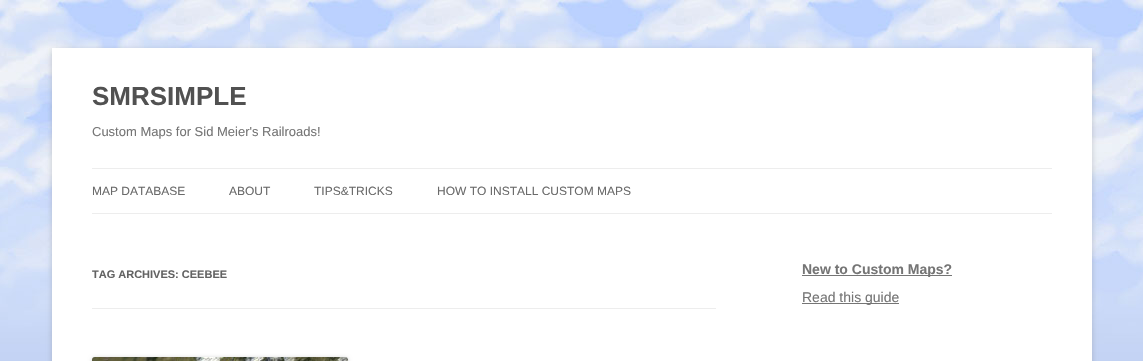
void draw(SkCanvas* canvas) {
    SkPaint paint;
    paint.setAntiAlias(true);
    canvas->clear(0xFFFFFFFF);
    canvas->drawImageRect(SkImages::DeferredFromEncodedData(SkData::MakeFromFileName("img1.png")), SkRect::MakeXYWH(0, 0, 1143, 361), SkSamplingOptions());
    paint.setColor(0x4D646464);
    paint.setMaskFilter(SkMaskFilter::MakeBlur(kNormal_SkBlurStyle, 3));
    canvas->drawRect(SkRect::MakeXYWH(52, 50, 1040, 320), paint);
    paint.setMaskFilter(nullptr);
    paint.setColor(0xFFFFFFFF);
    canvas->drawRect(SkRect::MakeXYWH(52, 48, 1040, 313), paint);
    SkFont font1(fontMgr->matchFamilyStyle("Liberation Sans", SkFontStyle::Bold()), 26);
    font1.setSubpixel(true);
    paint.setColor(0xFF515151);
    canvas->drawString("SMRSIMPLE", 92, 105, font1, paint);
    SkFont font2(fontMgr->matchFamilyStyle("Liberation Sans", SkFontStyle::Normal()), 13);
    font2.setSubpixel(true);
    paint.setColor(0xFF757575);
    canvas->drawString("Custom Maps for Sid Meier's Railroads!", 92, 136, font2, paint);
    paint.setColor(0xFFEDEDED);
    canvas->drawRect(SkRect::MakeXYWH(92, 168, 960, 1), paint);
    canvas->drawRect(SkRect::MakeXYWH(92, 213, 960, 1), paint);
    SkFont font3(fontMgr->matchFamilyStyle("Liberation Sans", SkFontStyle::Normal()), 12);
    font3.setSubpixel(true);
    paint.setColor(0xFF6A6A6A);
    canvas->drawString("MAP DATABASE", 92, 195, font3, paint);
    canvas->drawString("ABOUT", 229, 195, font3, paint);
    canvas->drawString("TIPS&TRICKS", 314, 195, font3, paint);
    canvas->drawString("HOW TO INSTALL CUSTOM MAPS", 437, 195, font3, paint);
    paint.setColor(0xFFEDEDED);
    canvas->drawRect(SkRect::MakeXYWH(92, 308, 624, 1), paint);
    SkFont font4(fontMgr->matchFamilyStyle("Liberation Sans", SkFontStyle::Bold()), 11);
    font4.setSubpixel(true);
    paint.setColor(0xFF636363);
    canvas->drawString("TAG ARCHIVES: CEEBEE", 92, 278, font4, paint);
    paint.setColor(0x33000000);
    paint.setMaskFilter(SkMaskFilter::MakeBlur(kNormal_SkBlurStyle, 2));
    canvas->drawRoundRect(SkRect::MakeXYWH(92, 358, 256, 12), 3, 3, paint);
    paint.setMaskFilter(nullptr);
    canvas->drawImageRect(SkImages::DeferredFromEncodedData(SkData::MakeFromFileName("img2.png")), SkRect::MakeXYWH(92, 357, 256, 4), SkSamplingOptions());
    paint.setColor(0xFF757575);
    canvas->drawRect(SkRect::MakeXYWH(802, 275, 150, 1), paint);
    SkFont font5(fontMgr->matchFamilyStyle("Liberation Sans", SkFontStyle::Bold()), 14);
    font5.setSubpixel(true);
    canvas->drawString("New to Custom Maps?", 802, 274, font5, paint);
    canvas->drawRect(SkRect::MakeXYWH(802, 303, 97, 1), paint);
    SkFont font6(fontMgr->matchFamilyStyle("Liberation Sans", SkFontStyle::Normal()), 14);
    font6.setSubpixel(true);
    canvas->drawString("Read this guide", 802, 302, font6, paint);
}
